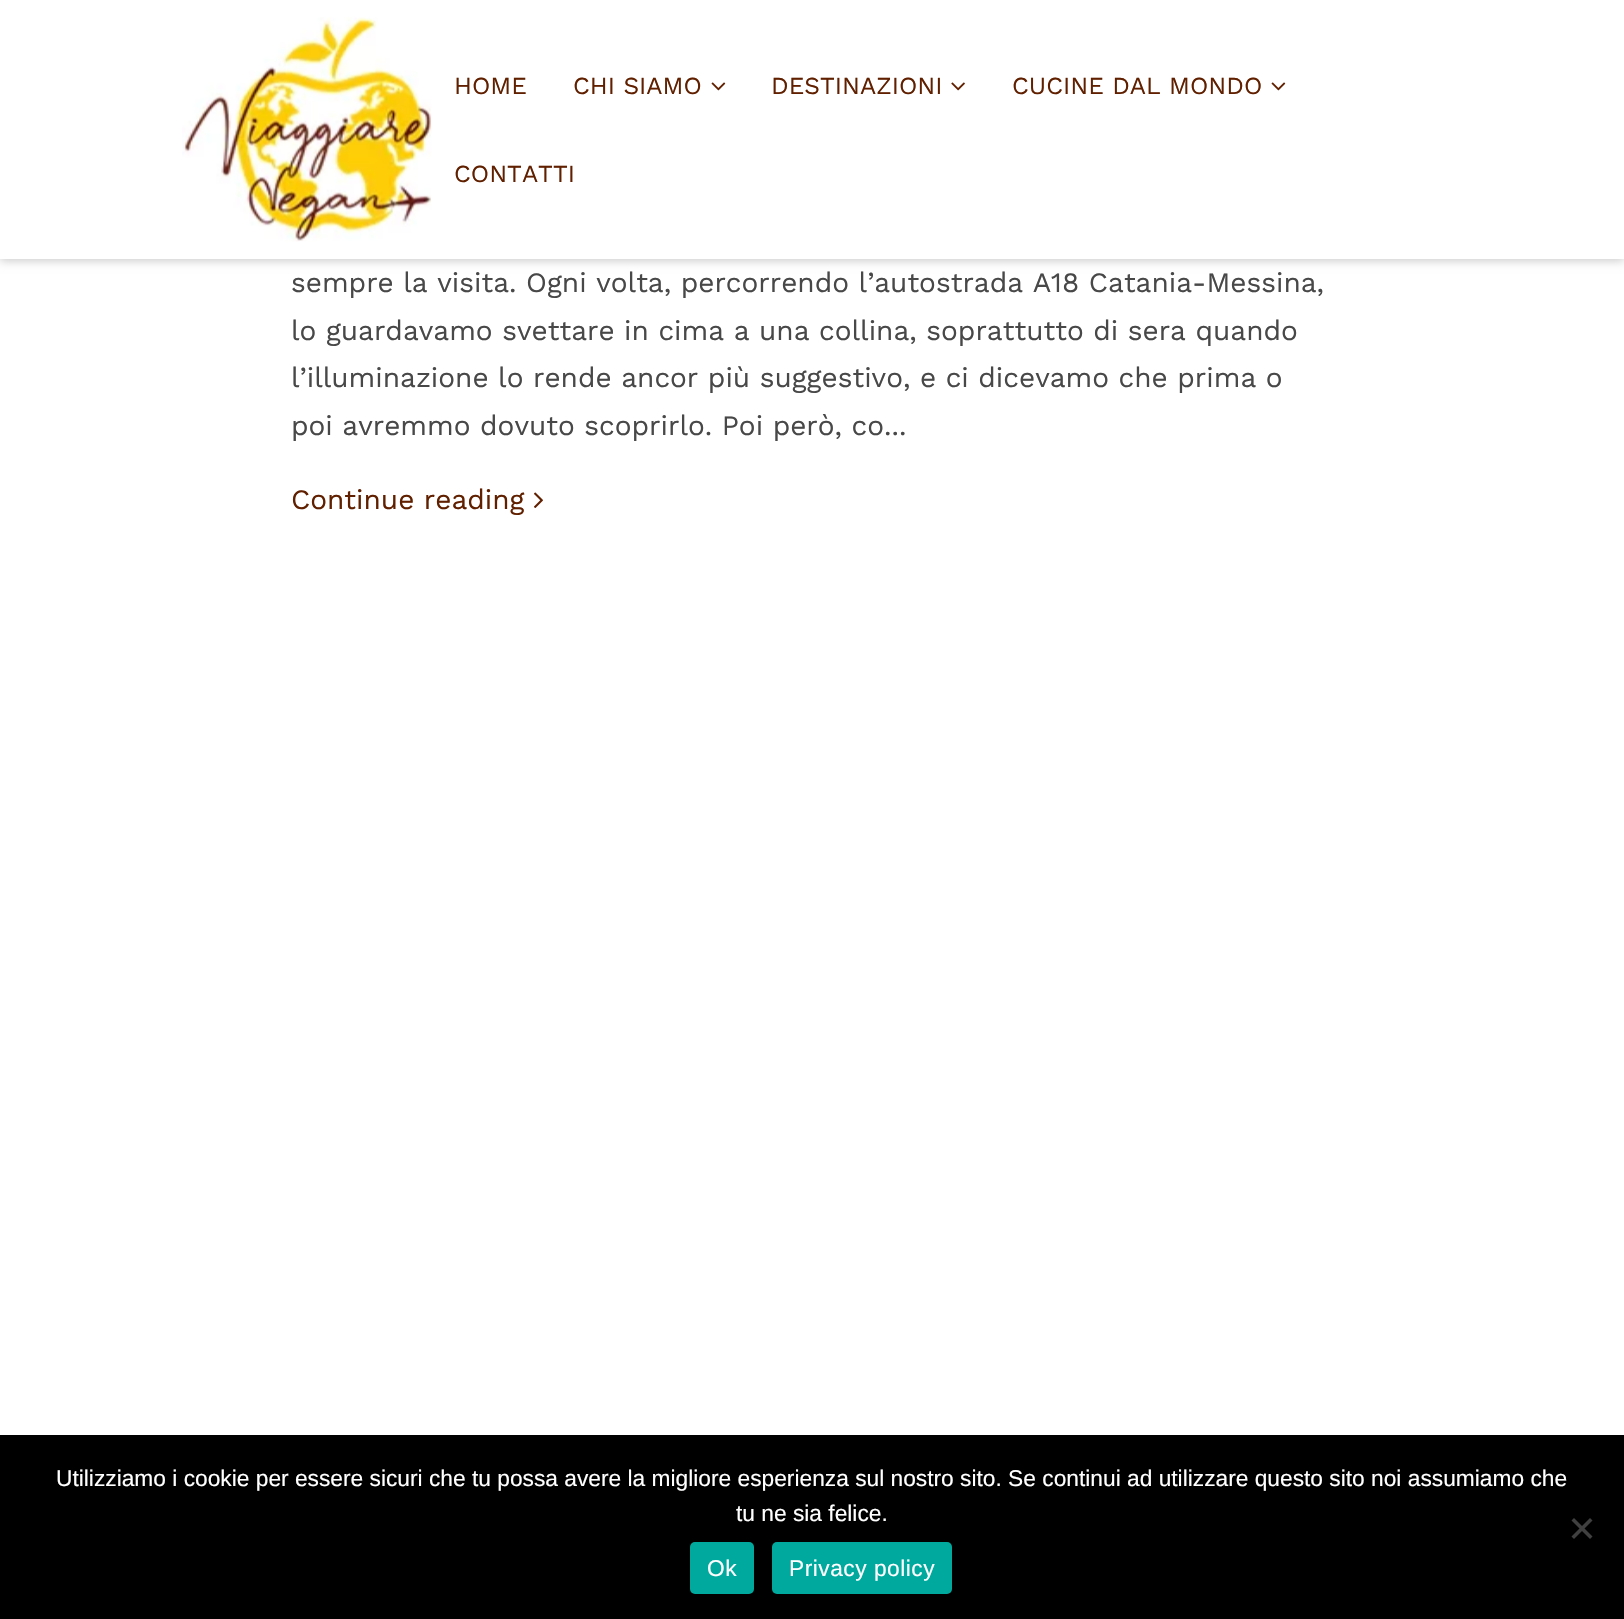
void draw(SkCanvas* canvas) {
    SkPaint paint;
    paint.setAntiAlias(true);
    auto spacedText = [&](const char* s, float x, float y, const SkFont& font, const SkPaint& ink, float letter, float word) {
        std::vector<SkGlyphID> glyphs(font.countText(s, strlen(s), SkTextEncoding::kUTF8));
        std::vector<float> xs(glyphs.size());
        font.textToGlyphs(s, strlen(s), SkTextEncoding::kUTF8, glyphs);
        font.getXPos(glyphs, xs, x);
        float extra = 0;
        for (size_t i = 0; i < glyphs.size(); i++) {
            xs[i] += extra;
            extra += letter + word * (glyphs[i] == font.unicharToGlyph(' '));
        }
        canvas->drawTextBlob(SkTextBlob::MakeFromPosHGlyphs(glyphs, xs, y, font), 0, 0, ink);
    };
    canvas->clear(0xFFFFFFFF);
    paint.setColor(0x33000000);
    paint.setMaskFilter(SkMaskFilter::MakeBlur(kNormal_SkBlurStyle, 4.5f));
    canvas->drawRect(SkRect::MakeXYWH(0, 2, 1624, 259), paint);
    paint.setMaskFilter(nullptr);
    paint.setColor(0xFFFFFFFF);
    canvas->drawRect(SkRect::MakeXYWH(0, 0, 1624, 259), paint);
    canvas->drawImageRect(SkImages::DeferredFromEncodedData(SkData::MakeFromFileName("img1.png")), SkRect::MakeXYWH(182, 17, 250, 225), SkSamplingOptions());
    SkFont font1(fontMgr->matchFamilyStyle("Work Sans", SkFontStyle::Normal()), 24.5f);
    font1.setSubpixel(true);
    paint.setColor(0xFF602000);
    canvas->drawString("HOME", 454, 94, font1, paint);
    canvas->drawString("CHI SIAMO", 573, 94, font1, paint);
    canvas->drawImageRect(SkImages::DeferredFromEncodedData(SkData::MakeFromFileName("img2.png")), SkRect::MakeXYWH(711, 82, 15, 9), SkSamplingOptions());
    canvas->drawString("DESTINAZIONI", 771, 94, font1, paint);
    canvas->drawImageRect(SkImages::DeferredFromEncodedData(SkData::MakeFromFileName("img3.png")), SkRect::MakeXYWH(951, 82, 14, 9), SkSamplingOptions());
    canvas->drawString("CUCINE DAL MONDO", 1012, 94, font1, paint);
    canvas->drawImageRect(SkImages::DeferredFromEncodedData(SkData::MakeFromFileName("img2.png")), SkRect::MakeXYWH(1271, 82, 15, 9), SkSamplingOptions());
    canvas->drawString("CONTATTI", 454, 182, font1, paint);
    SkFont font2(fontMgr->matchFamilyStyle("Work Sans", SkFontStyle::Normal()), 28);
    font2.setSubpixel(true);
    paint.setColor(0xFF484848);
    canvas->drawString("sempre la visita. Ogni volta, percorrendo l’autostrada A18 Catania-Messina,", 291, 292, font2, paint);
    canvas->drawString("lo guardavamo svettare in cima a una collina, soprattutto di sera quando", 291, 340, font2, paint);
    canvas->drawString("l’illuminazione lo rende ancor più suggestivo, e ci dicevamo che prima o", 291, 387, font2, paint);
    canvas->drawString("poi avremmo dovuto scoprirlo. Poi però, co...", 291, 435, font2, paint);
    paint.setColor(0xFF602000);
    canvas->drawString("Continue reading", 291, 509, font2, paint);
    canvas->drawImageRect(SkImages::DeferredFromEncodedData(SkData::MakeFromFileName("img4.png")), SkRect::MakeXYWH(534, 492, 9, 16), SkSamplingOptions());
    paint.setColor(0xFF000000);
    canvas->drawRect(SkRect::MakeXYWH(0, 1435, 1624, 184), paint);
    SkFont font3(fontMgr->matchFamilyStyle("Liberation Sans", SkFontStyle::Normal()), 22.75f);
    font3.setSubpixel(true);
    paint.setColor(0xFFFFFFFF);
    canvas->drawString("Utilizziamo i cookie per essere sicuri che tu possa avere la migliore esperienza sul nostro sito. Se continui ad utilizzare questo sito noi assumiamo che", 56, 1486, font3, paint);
    canvas->drawString("tu ne sia felice.", 736, 1521, font3, paint);
    paint.setColor(0xFF404040);
    canvas->drawPath(SkPathBuilder().moveTo(1590, 1518).lineTo(1592.5f, 1520.5f).lineTo(1574, 1539).lineTo(1571.5f, 1536.5f).close().detach(), paint);
    canvas->drawPath(SkPathBuilder().moveTo(1571.5f, 1520.5f).lineTo(1574, 1518).lineTo(1592.5f, 1536.5f).lineTo(1590, 1539).close().detach(), paint);
    paint.setColor(0xFF00A99D);
    canvas->drawRoundRect(SkRect::MakeXYWH(690, 1542, 64, 52), 5, 5, paint);
    paint.setColor(0xFFFFFFFF);
    spacedText("Ok", 707, 1576, font3, paint, 0.5f, 0);
    paint.setColor(0xFF00A99D);
    canvas->drawRoundRect(SkRect::MakeXYWH(772, 1542, 180, 52), 5, 5, paint);
    paint.setColor(0xFFFFFFFF);
    spacedText("Privacy policy", 789, 1576, font3, paint, 0.5f, 0);
}
